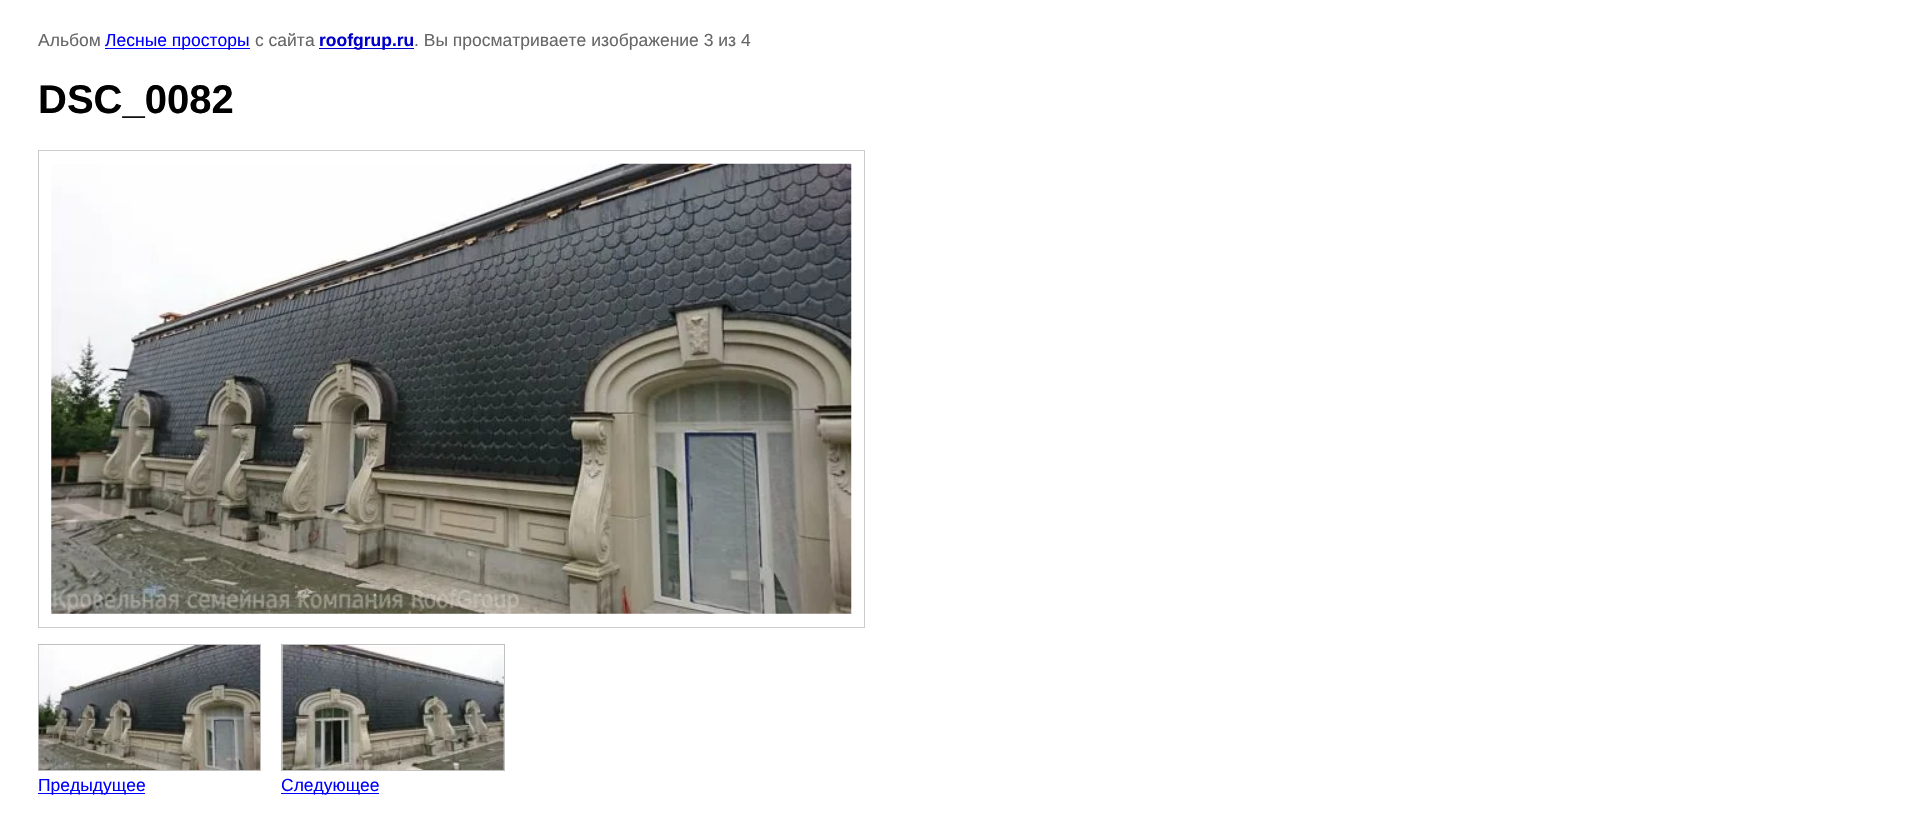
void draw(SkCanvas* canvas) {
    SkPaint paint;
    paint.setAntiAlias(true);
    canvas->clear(0xFFFFFFFF);
    SkFont font1(fontMgr->matchFamilyStyle("Liberation Sans", SkFontStyle::Normal()), 17.5f);
    font1.setSubpixel(true);
    paint.setColor(0xFF666666);
    canvas->drawString("Альбом", 38, 46, font1, paint);
    paint.setColor(0xFF0000FF);
    canvas->drawRect(SkRect::MakeXYWH(105, 48, 145, 1), paint);
    canvas->drawString("Лесные просторы", 105, 46, font1, paint);
    paint.setColor(0xFF666666);
    canvas->drawString("с сайта", 255, 46, font1, paint);
    paint.setColor(0xFF0000CC);
    canvas->drawRect(SkRect::MakeXYWH(319, 48, 95, 1), paint);
    SkFont font2(fontMgr->matchFamilyStyle("Liberation Sans", SkFontStyle::Bold()), 17.5f);
    font2.setSubpixel(true);
    canvas->drawString("roofgrup.ru", 319, 46, font2, paint);
    paint.setColor(0xFF666666);
    canvas->drawString(". Вы просматриваете изображение 3 из 4", 414, 46, font1, paint);
    SkFont font3(fontMgr->matchFamilyStyle("Liberation Sans", SkFontStyle::Bold()), 40);
    font3.setSubpixel(true);
    paint.setColor(0xFF000000);
    canvas->drawString("DSC_0082", 38, 113, font3, paint);
    paint.setStyle(SkPaint::kStroke_Style);
    paint.setStrokeWidth(1);
    paint.setColor(0xFFCCCCCC);
    canvas->drawRect(SkRect::MakeXYWH(38.5f, 150.5f, 826, 477), paint);
    canvas->drawImageRect(SkImages::DeferredFromEncodedData(SkData::MakeFromFileName("img1.png")), SkRect::MakeXYWH(51, 163, 801, 451), SkSamplingOptions());
    paint.setColor(0xFFC0C0C0);
    canvas->drawRect(SkRect::MakeXYWH(38.5f, 644.5f, 222, 126), paint);
    canvas->drawImageRect(SkImages::DeferredFromEncodedData(SkData::MakeFromFileName("img2.png")), SkRect::MakeXYWH(38, 645, 222, 125), SkSamplingOptions());
    paint.setStyle(SkPaint::kFill_Style);
    paint.setColor(0xFF0000FF);
    canvas->drawRect(SkRect::MakeXYWH(38, 793, 107, 1), paint);
    canvas->drawString("Предыдущее", 38, 791, font1, paint);
    paint.setStyle(SkPaint::kStroke_Style);
    paint.setColor(0xFFC0C0C0);
    canvas->drawRect(SkRect::MakeXYWH(281.5f, 644.5f, 223, 126), paint);
    canvas->drawImageRect(SkImages::DeferredFromEncodedData(SkData::MakeFromFileName("img3.png")), SkRect::MakeXYWH(282, 645, 222, 125), SkSamplingOptions());
    paint.setStyle(SkPaint::kFill_Style);
    paint.setColor(0xFF0000FF);
    canvas->drawRect(SkRect::MakeXYWH(281, 793, 98, 1), paint);
    canvas->drawString("Следующее", 281, 791, font1, paint);
}
